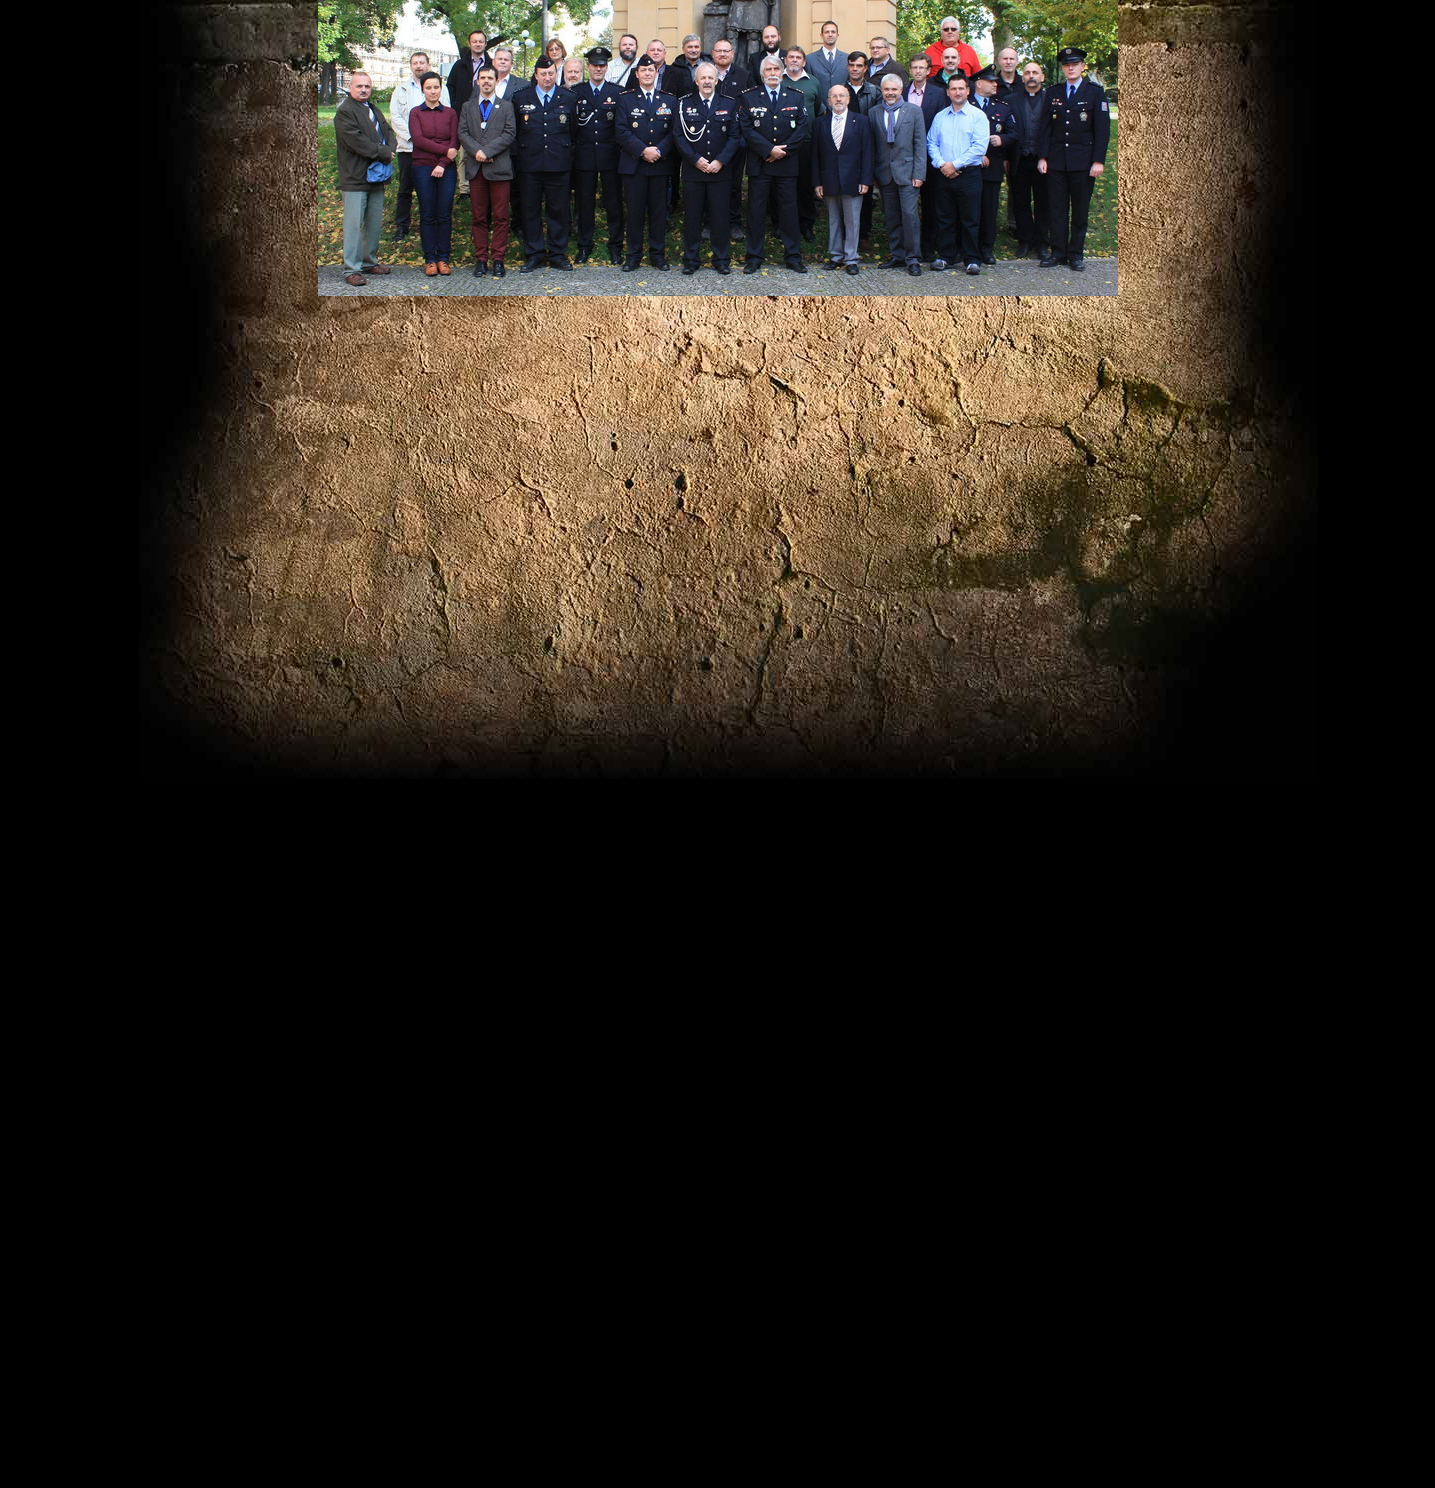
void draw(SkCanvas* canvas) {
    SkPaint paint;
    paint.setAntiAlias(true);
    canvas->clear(0xFF000000);
    canvas->drawImageRect(SkImages::DeferredFromEncodedData(SkData::MakeFromFileName("img1.png")), SkRect::MakeXYWH(139, 0, 1179, 779), SkSamplingOptions());
    canvas->drawImageRect(SkImages::DeferredFromEncodedData(SkData::MakeFromFileName("img2.png")), SkRect::MakeXYWH(318, 0, 800, 296), SkSamplingOptions());
}
